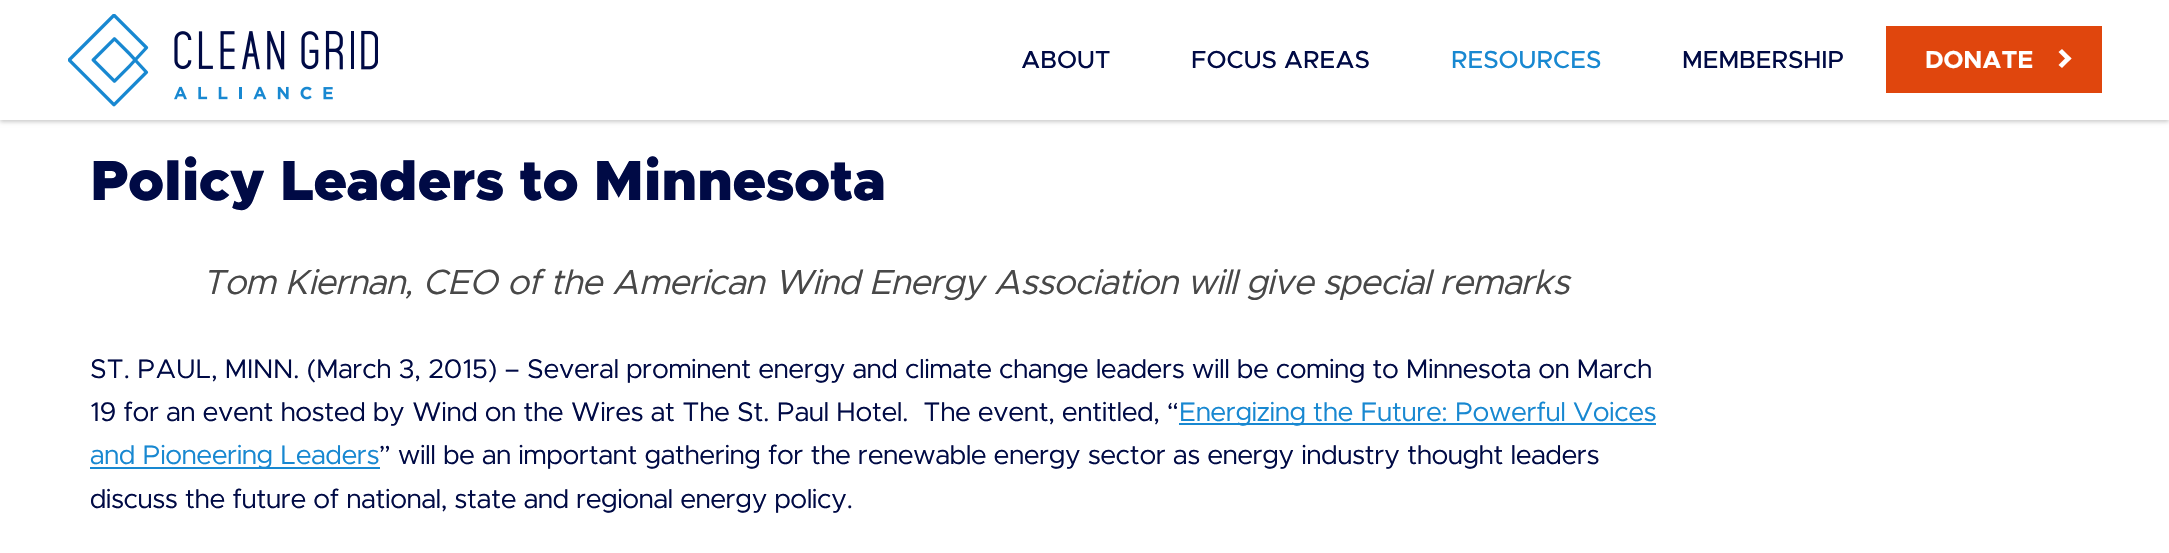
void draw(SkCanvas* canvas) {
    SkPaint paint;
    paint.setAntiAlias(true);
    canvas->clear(0xFFFFFFFF);
    paint.setColor(0x33000000);
    paint.setMaskFilter(SkMaskFilter::MakeBlur(kNormal_SkBlurStyle, 2));
    canvas->drawRect(SkRect::MakeXYWH(0, 2, 2169, 120), paint);
    paint.setMaskFilter(nullptr);
    paint.setColor(0xFFFFFFFF);
    canvas->drawRect(SkRect::MakeXYWH(0, 0, 2169, 120), paint);
    canvas->drawImageRect(SkImages::DeferredFromEncodedData(SkData::MakeFromFileName("img1.png")), SkRect::MakeXYWH(68, 14, 310, 93), SkSamplingOptions());
    SkFont font1(fontMgr->matchFamilyStyle("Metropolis", SkFontStyle(500, SkFontStyle::kNormal_Width, SkFontStyle::kUpright_Slant)), 24.75f);
    font1.setSubpixel(true);
    paint.setColor(0xFF000A45);
    canvas->drawString("ABOUT", 1021, 68, font1, paint);
    canvas->drawString("FOCUS AREAS", 1191, 68, font1, paint);
    paint.setColor(0xFF1888D1);
    canvas->drawString("RESOURCES", 1451, 68, font1, paint);
    paint.setColor(0xFF000A45);
    canvas->drawString("MEMBERSHIP", 1682, 68, font1, paint);
    paint.setColor(0xFFE0460D);
    canvas->drawRect(SkRect::MakeXYWH(1886, 26, 216, 67), paint);
    SkFont font2(fontMgr->matchFamilyStyle("Metropolis", SkFontStyle::Bold()), 24.75f);
    font2.setSubpixel(true);
    paint.setColor(0xFFFFFFFF);
    canvas->drawString("DONATE", 1925, 68, font2, paint);
    canvas->drawPath(SkPathBuilder().moveTo(2058.5f, 52).lineTo(2062, 49).lineTo(2071.5f, 58.5f).lineTo(2068, 61.5f).close().detach(), paint);
    canvas->drawPath(SkPathBuilder().moveTo(2058.5f, 65).lineTo(2068, 55.5f).lineTo(2071.5f, 58.5f).lineTo(2062, 68).close().detach(), paint);
    SkFont font3(fontMgr->matchFamilyStyle("Metropolis", SkFontStyle(900, SkFontStyle::kNormal_Width, SkFontStyle::kUpright_Slant)), 56.75f);
    font3.setSubpixel(true);
    paint.setColor(0xFF000A45);
    canvas->drawString("Policy Leaders to Minnesota", 90, 200, font3, paint);
    SkFont font4(fontMgr->matchFamilyStyle("Metropolis", SkFontStyle::Italic()), 35.1f);
    font4.setSubpixel(true);
    paint.setColor(0xFF484848);
    canvas->drawString("Tom Kiernan, CEO of the American Wind Energy Association will give special remarks", 202, 294, font4, paint);
    SkFont font5(fontMgr->matchFamilyStyle("Metropolis", SkFontStyle::Normal()), 27);
    font5.setSubpixel(true);
    paint.setColor(0xFF000A45);
    canvas->drawString("ST. PAUL, MINN. (March 3, 2015) – Several prominent energy and climate change leaders will be coming to Minnesota on March", 90, 378, font5, paint);
    canvas->drawString("19 for an event hosted by Wind on the Wires at The St. Paul Hotel.  The event, entitled, “", 90, 421, font5, paint);
    paint.setColor(0xFF1888D1);
    canvas->drawRect(SkRect::MakeXYWH(1179, 423, 477, 2), paint);
    canvas->drawString("Energizing the Future: Powerful Voices", 1179, 421, font5, paint);
    canvas->drawRect(SkRect::MakeXYWH(90, 467, 290, 2), paint);
    canvas->drawString("and Pioneering Leaders", 90, 464, font5, paint);
    paint.setColor(0xFF000A45);
    canvas->drawString("” will be an important gathering for the renewable energy sector as energy industry thought leaders", 379, 464, font5, paint);
    canvas->drawString("discuss the future of national, state and regional energy policy.", 90, 508, font5, paint);
}
